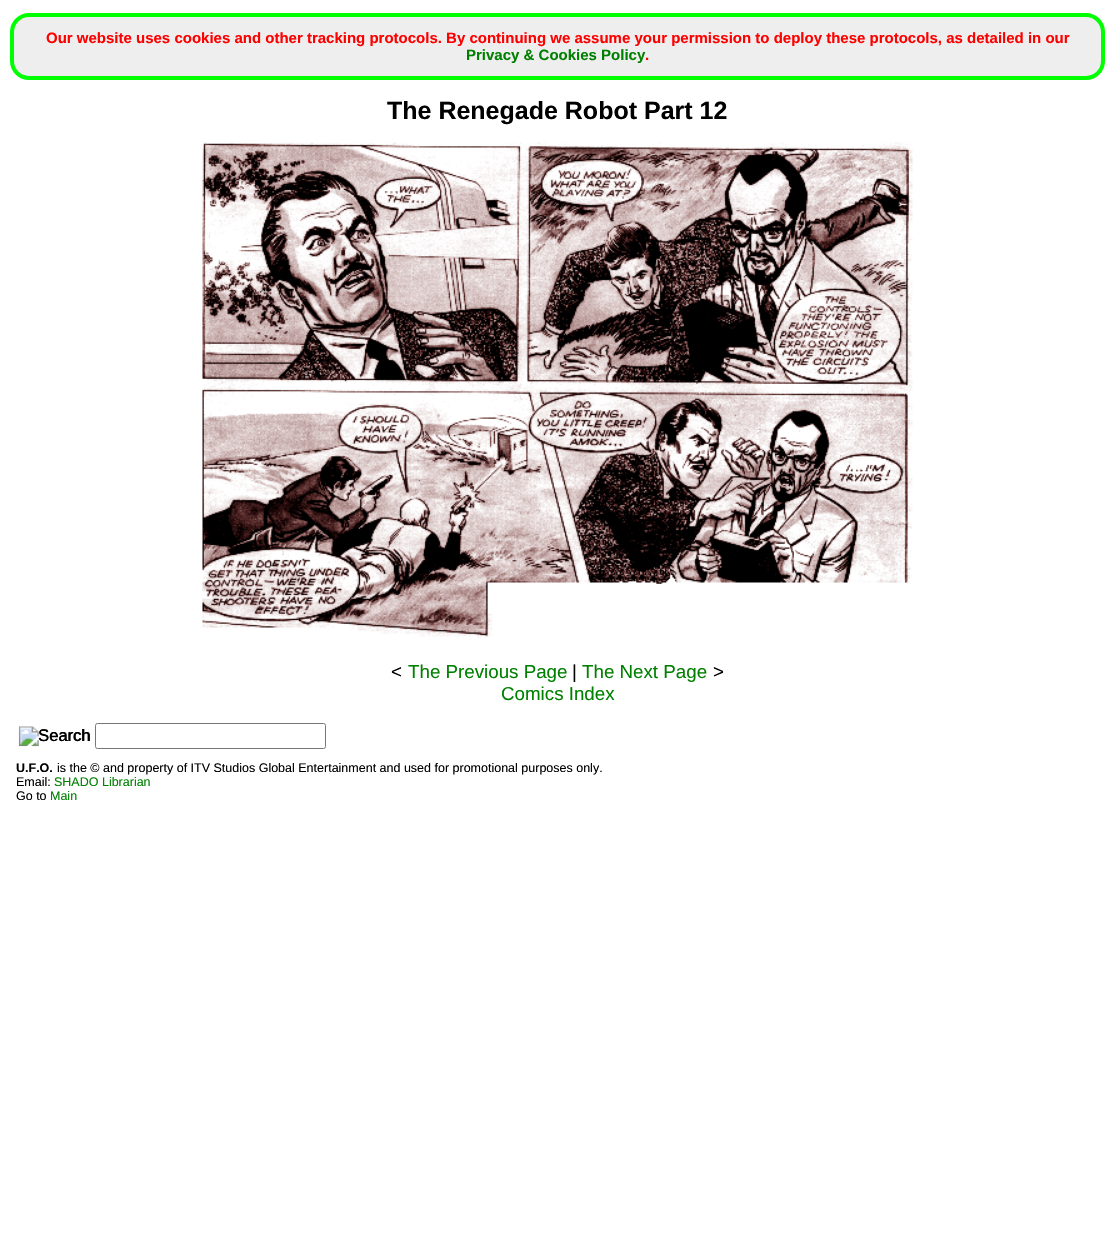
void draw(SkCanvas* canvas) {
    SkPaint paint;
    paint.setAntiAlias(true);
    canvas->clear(0xFFFFFFFF);
    paint.setColor(0xFFEEEEEE);
    canvas->drawRoundRect(SkRect::MakeXYWH(12, 15, 1091, 63), 17, 17, paint);
    paint.setStyle(SkPaint::kStroke_Style);
    paint.setStrokeWidth(4);
    paint.setColor(0xFF00FF00);
    canvas->drawRoundRect(SkRect::MakeXYWH(12, 15, 1091, 63), 17, 17, paint);
    SkFont font1(fontMgr->matchFamilyStyle("Liberation Sans", SkFontStyle::Bold()), 15);
    font1.setSubpixel(true);
    paint.setStyle(SkPaint::kFill_Style);
    paint.setColor(0xFFFF0000);
    canvas->drawString("Our website uses cookies and other tracking protocols. By continuing we assume your permission to deploy these protocols, as detailed in our", 46, 43, font1, paint);
    paint.setColor(0xFF008000);
    canvas->drawString("Privacy & Cookies Policy", 466, 60, font1, paint);
    paint.setColor(0xFFFF0000);
    canvas->drawString(".", 645, 60, font1, paint);
    SkFont font2(fontMgr->matchFamilyStyle("Liberation Sans", SkFontStyle::Bold()), 25);
    font2.setSubpixel(true);
    paint.setColor(0xFF000000);
    canvas->drawString("The Renegade Robot Part 12", 387, 119, font2, paint);
    canvas->drawImageRect(SkImages::DeferredFromEncodedData(SkData::MakeFromFileName("img1.png")), SkRect::MakeXYWH(202, 142, 711, 498), SkSamplingOptions());
    SkFont font3(fontMgr->matchFamilyStyle("Liberation Sans", SkFontStyle::Normal()), 18.75f);
    font3.setSubpixel(true);
    canvas->drawString("<", 391, 678, font3, paint);
    paint.setColor(0xFF008000);
    canvas->drawString("The Previous Page", 408, 678, font3, paint);
    paint.setColor(0xFF000000);
    canvas->drawString("|", 572, 678, font3, paint);
    paint.setColor(0xFF008000);
    canvas->drawString("The Next Page", 582, 678, font3, paint);
    paint.setColor(0xFF000000);
    canvas->drawString(">", 713, 678, font3, paint);
    paint.setColor(0xFF008000);
    canvas->drawString("Comics Index", 501, 700, font3, paint);
    canvas->drawImageRect(SkImages::DeferredFromEncodedData(SkData::MakeFromFileName("img2.png")), SkRect::MakeXYWH(18, 726, 72, 21), SkSamplingOptions());
    SkFont font4(fontMgr->matchFamilyStyle("Liberation Sans", SkFontStyle::Normal()), 16.5f);
    font4.setSubpixel(true);
    paint.setColor(0xFF000000);
    canvas->drawString("Search", 38, 741, font4, paint);
    paint.setStyle(SkPaint::kStroke_Style);
    paint.setStrokeWidth(1);
    paint.setColor(0xFF767676);
    canvas->drawRoundRect(SkRect::MakeXYWH(95.5f, 723.5f, 230, 25), 2, 2, paint);
    SkFont font5(fontMgr->matchFamilyStyle("Liberation Sans", SkFontStyle::Bold()), 12.5f);
    font5.setSubpixel(true);
    paint.setStyle(SkPaint::kFill_Style);
    paint.setColor(0xFF000000);
    canvas->drawString("U.F.O.", 16, 772, font5, paint);
    SkFont font6(fontMgr->matchFamilyStyle("Liberation Sans", SkFontStyle::Normal()), 12.5f);
    font6.setSubpixel(true);
    canvas->drawString("is the © and property of ITV Studios Global Entertainment and used for promotional purposes only.", 57, 772, font6, paint);
    canvas->drawString("Email:", 16, 786, font6, paint);
    paint.setColor(0xFF008000);
    canvas->drawString("SHADO Librarian", 54, 786, font6, paint);
    paint.setColor(0xFF000000);
    canvas->drawString("Go to", 16, 800, font6, paint);
    paint.setColor(0xFF008000);
    canvas->drawString("Main", 50, 800, font6, paint);
}
